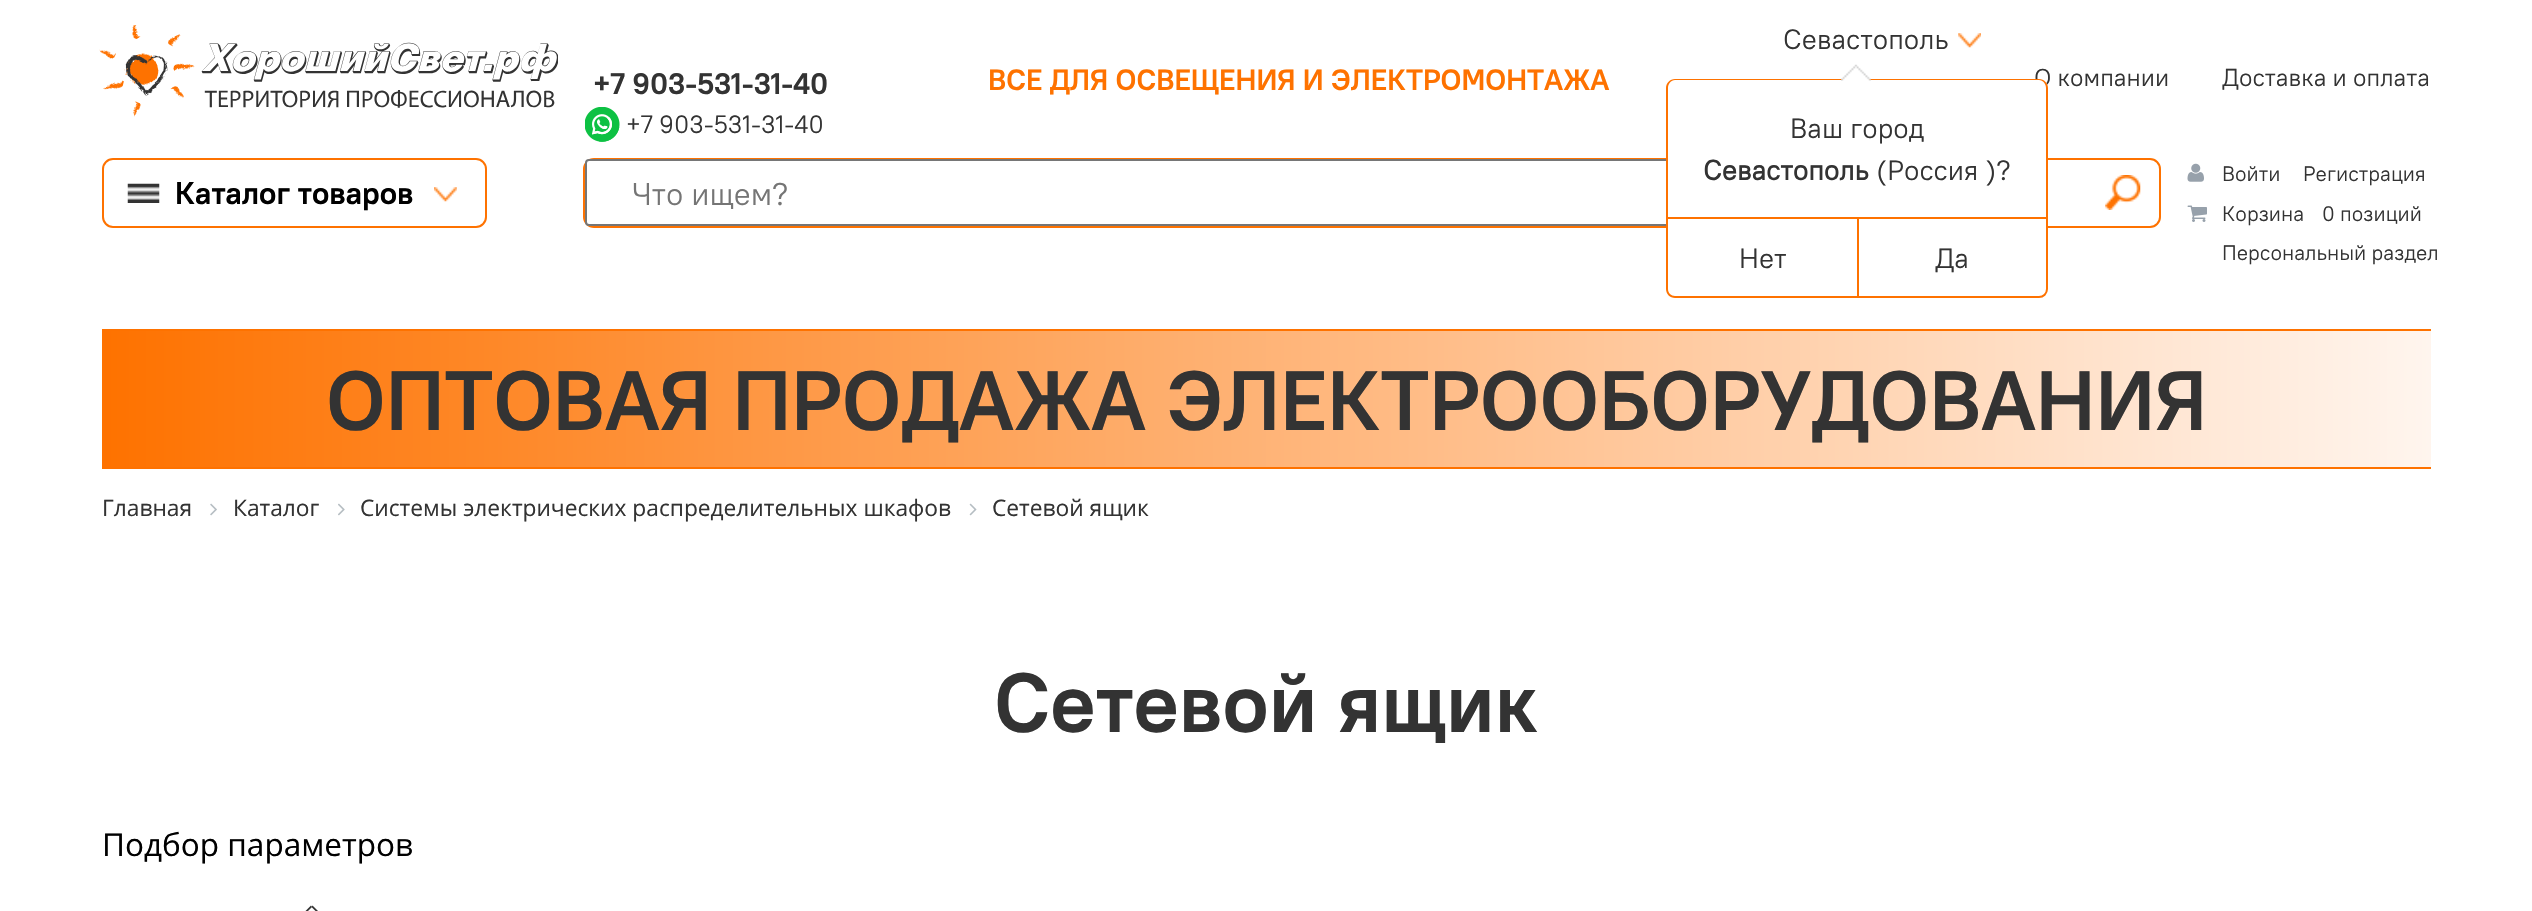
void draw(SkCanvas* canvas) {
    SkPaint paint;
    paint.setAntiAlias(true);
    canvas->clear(0xFFFFFFFF);
    canvas->drawImageRect(SkImages::DeferredFromEncodedData(SkData::MakeFromFileName("img1.png")), SkRect::MakeXYWH(99, 25, 459, 92), SkSamplingOptions());
    SkFont font1(fontMgr->matchFamilyStyle("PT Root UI", SkFontStyle::Bold()), 29.75f);
    font1.setSubpixel(true);
    paint.setColor(0xFF333333);
    canvas->drawString("+7 903-531-31-40", 593, 94, font1, paint);
    canvas->drawImageRect(SkImages::DeferredFromEncodedData(SkData::MakeFromFileName("img2.png")), SkRect::MakeXYWH(585, 107, 35, 35), SkSamplingOptions());
    SkFont font2(fontMgr->matchFamilyStyle("PT Root UI", SkFontStyle::Normal()), 25);
    font2.setSubpixel(true);
    canvas->drawString("+7 903-531-31-40", 626, 133, font2, paint);
    SkFont font3(fontMgr->matchFamilyStyle("PT Root UI", SkFontStyle::Bold()), 29.4f);
    font3.setSubpixel(true);
    paint.setColor(0xFFFE7200);
    canvas->drawString("ВСЕ ДЛЯ ОСВЕЩЕНИЯ И ЭЛЕКТРОМОНТАЖА", 988, 90, font3, paint);
    SkFont font4(fontMgr->matchFamilyStyle("PT Root UI", SkFontStyle::Normal()), 28);
    font4.setSubpixel(true);
    paint.setColor(0xFF333333);
    canvas->drawString("Севастополь", 1783, 49, font4, paint);
    canvas->drawImageRect(SkImages::DeferredFromEncodedData(SkData::MakeFromFileName("img3.png")), SkRect::MakeXYWH(1958, 33, 23, 15), SkSamplingOptions());
    SkFont font5(fontMgr->matchFamilyStyle("PT Root UI", SkFontStyle::Normal()), 24.5f);
    font5.setSubpixel(true);
    canvas->drawString("О компании", 2034, 86, font5, paint);
    canvas->drawString("Доставка и оплата", 2222, 86, font5, paint);
    paint.setStyle(SkPaint::kStroke_Style);
    paint.setStrokeWidth(2);
    paint.setColor(0xFFFE7200);
    canvas->drawRoundRect(SkRect::MakeXYWH(103, 159, 383, 68), 10, 10, paint);
    canvas->drawImageRect(SkImages::DeferredFromEncodedData(SkData::MakeFromFileName("img4.png")), SkRect::MakeXYWH(127, 183, 33, 20), SkSamplingOptions());
    SkFont font6(fontMgr->matchFamilyStyle("PT Root UI", SkFontStyle::Bold()), 31.5f);
    font6.setSubpixel(true);
    paint.setStyle(SkPaint::kFill_Style);
    paint.setColor(0xFF000000);
    canvas->drawString("Каталог товаров", 175, 204, font6, paint);
    canvas->drawImageRect(SkImages::DeferredFromEncodedData(SkData::MakeFromFileName("img5.png")), SkRect::MakeXYWH(434, 187, 23, 15), SkSamplingOptions());
    paint.setStyle(SkPaint::kStroke_Style);
    paint.setColor(0xFFFE7200);
    canvas->drawRoundRect(SkRect::MakeXYWH(584, 159, 1576, 68), 10, 10, paint);
    paint.setStyle(SkPaint::kFill_Style);
    paint.setColor(0xFFFFFFFF);
    canvas->drawRoundRect(SkRect::MakeXYWH(586, 160, 1338, 65), 3, 3, paint);
    paint.setStyle(SkPaint::kStroke_Style);
    paint.setColor(0xFF767676);
    canvas->drawRoundRect(SkRect::MakeXYWH(586, 160, 1338, 65), 3, 3, paint);
    SkFont font7(fontMgr->matchFamilyStyle("PT Root UI", SkFontStyle::Normal()), 31.5f);
    font7.setSubpixel(true);
    paint.setStyle(SkPaint::kFill_Style);
    paint.setColor(0xFF757575);
    canvas->drawString("Что ищем?", 632, 205, font7, paint);
    canvas->drawImageRect(SkImages::DeferredFromEncodedData(SkData::MakeFromFileName("img6.png")), SkRect::MakeXYWH(2105, 175, 36, 35), SkSamplingOptions());
    canvas->drawImageRect(SkImages::DeferredFromEncodedData(SkData::MakeFromFileName("img7.png")), SkRect::MakeXYWH(2187, 163, 17, 19), SkSamplingOptions());
    SkFont font8(fontMgr->matchFamilyStyle("PT Root UI", SkFontStyle::Normal()), 21);
    font8.setSubpixel(true);
    paint.setColor(0xFF333333);
    canvas->drawString("Войти", 2222, 181, font8, paint);
    canvas->drawString("Регистрация", 2303, 181, font8, paint);
    canvas->drawImageRect(SkImages::DeferredFromEncodedData(SkData::MakeFromFileName("img8.png")), SkRect::MakeXYWH(2187, 205, 20, 17), SkSamplingOptions());
    canvas->drawString("Корзина", 2222, 221, font8, paint);
    canvas->drawString("0 позиций", 2322, 221, font8, paint);
    canvas->drawString("Персональный раздел", 2222, 260, font8, paint);
    {
        const SkColor colors[] = {0xFFFE7200, 0xFFFFF5EE};
        const float stops[] = {0, 1};
        const SkPoint ends[] = {{102, 399}, {2431, 399}};
        paint.setShader(SkGradientShader::MakeLinear(ends, colors, stops, 2, SkTileMode::kClamp));
        paint.setAlpha(255);
    }
    canvas->drawRect(SkRect::MakeXYWH(102, 331, 2329, 136), paint);
    paint.setShader(nullptr);
    paint.setColor(0xFFFE7200);
    canvas->drawRect(SkRect::MakeXYWH(102, 329, 2329, 2), paint);
    canvas->drawRect(SkRect::MakeXYWH(102, 467, 2329, 2), paint);
    SkFont font9(fontMgr->matchFamilyStyle("PT Root UI", SkFontStyle::Bold()), 84);
    font9.setSubpixel(true);
    paint.setColor(0xFF333333);
    canvas->drawString("ОПТОВАЯ ПРОДАЖА ЭЛЕКТРООБОРУДОВАНИЯ", 326, 430, font9, paint);
    SkFont font10(fontMgr->matchFamilyStyle("Open Sans", SkFontStyle::Normal()), 22.75f);
    font10.setSubpixel(true);
    canvas->drawString("Главная", 102, 516, font10, paint);
    canvas->drawImageRect(SkImages::DeferredFromEncodedData(SkData::MakeFromFileName("img9.png")), SkRect::MakeXYWH(210, 503, 7, 13), SkSamplingOptions());
    canvas->drawString("Каталог", 233, 516, font10, paint);
    canvas->drawImageRect(SkImages::DeferredFromEncodedData(SkData::MakeFromFileName("img10.png")), SkRect::MakeXYWH(338, 503, 7, 13), SkSamplingOptions());
    canvas->drawString("Системы электрических распределительных шкафов", 360, 516, font10, paint);
    canvas->drawImageRect(SkImages::DeferredFromEncodedData(SkData::MakeFromFileName("img11.png")), SkRect::MakeXYWH(969, 503, 8, 13), SkSamplingOptions());
    canvas->drawString("Сетевой ящик", 992, 516, font10, paint);
    paint.setColor(0xFFFFFFFF);
    canvas->drawRoundRect(SkRect::MakeXYWH(1666, 79, 382, 219), 9, 9, paint);
    paint.setColor(0xFFFE7200);
    canvas->drawPath(SkPathBuilder(SkPathFillType::kEvenOdd).moveTo(1675, 79).lineTo(2039, 79).cubicTo(2044, 79, 2048, 83, 2048, 88).lineTo(2048, 217).lineTo(1666, 217).lineTo(1666, 88).cubicTo(1666, 83, 1670, 79, 1675, 79).close().moveTo(1675, 80).lineTo(2039, 80).cubicTo(2043, 80, 2046, 84, 2046, 88).lineTo(2046, 217).lineTo(1668, 217).lineTo(1668, 88).cubicTo(1668, 84, 1671, 80, 1675, 80).close().detach(), paint);
    canvas->drawImageRect(SkImages::DeferredFromEncodedData(SkData::MakeFromFileName("img12.png")), SkRect::MakeXYWH(1841, 64, 30, 17), SkSamplingOptions());
    paint.setColor(0xFF333333);
    canvas->drawString("Ваш город", 1790, 138, font4, paint);
    SkFont font11(fontMgr->matchFamilyStyle("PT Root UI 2", SkFontStyle::Bold()), 28);
    font11.setSubpixel(true);
    canvas->drawString("Севастополь", 1703, 180, font11, paint);
    canvas->drawString("(Россия )?", 1876, 180, font4, paint);
    paint.setColor(0xFFFE7200);
    canvas->drawPath(SkPathBuilder(SkPathFillType::kEvenOdd).moveTo(1666, 217).lineTo(1857, 217).lineTo(1857, 298).lineTo(1675, 298).cubicTo(1670, 298, 1666, 294, 1666, 289).close().moveTo(1668, 219).lineTo(1857, 219).lineTo(1857, 296).lineTo(1675, 296).cubicTo(1671, 296, 1668, 293, 1668, 289).close().detach(), paint);
    paint.setColor(0xFF333333);
    canvas->drawString("Нет", 1739, 268, font4, paint);
    paint.setStyle(SkPaint::kStroke_Style);
    paint.setColor(0xFFFE7200);
    canvas->drawPath(SkPathBuilder().moveTo(1858, 218).lineTo(2047, 218).lineTo(2047, 289).cubicTo(2047, 293.5f, 2043.5f, 297, 2039, 297).lineTo(1858, 297).close().detach(), paint);
    paint.setStyle(SkPaint::kFill_Style);
    paint.setColor(0xFF333333);
    canvas->drawString("Да", 1935, 268, font4, paint);
    canvas->drawString("Сетевой ящик", 994, 732, font9, paint);
    SkFont font12(fontMgr->matchFamilyStyle("Open Sans", SkFontStyle::Normal()), 31.5f);
    font12.setSubpixel(true);
    paint.setColor(0xFF000000);
    canvas->drawString("Подбор параметров", 102, 856, font12, paint);
    paint.setColor(0xFF333333);
    canvas->drawPath(SkPathBuilder().moveTo(301, 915.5f).lineTo(311, 905.5f).lineTo(312, 907).lineTo(302, 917).close().detach(), paint);
    canvas->drawPath(SkPathBuilder().moveTo(312.5f, 905.5f).lineTo(322.5f, 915.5f).lineTo(321.5f, 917).lineTo(311.5f, 907).close().detach(), paint);
}
